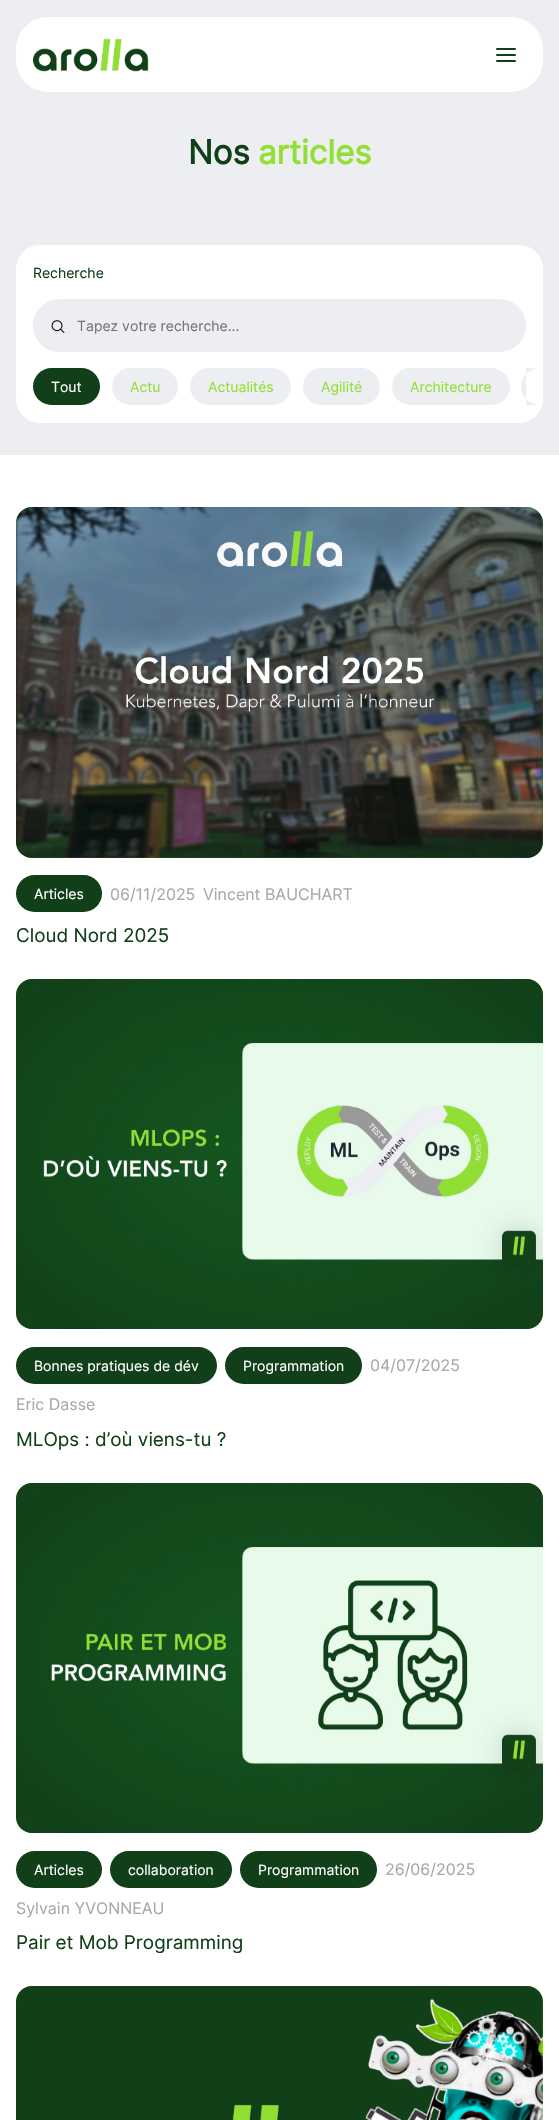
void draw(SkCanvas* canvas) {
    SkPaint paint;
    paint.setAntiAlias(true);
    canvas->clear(0xFFEDEEF2);
    paint.setColor(0xFFFFFFFF);
    canvas->drawRoundRect(SkRect::MakeXYWH(16, 17, 527, 75), 32, 32, paint);
    canvas->drawImageRect(SkImages::DeferredFromEncodedData(SkData::MakeFromFileName("img1.png")), SkRect::MakeXYWH(33, 38, 116, 34), SkSamplingOptions());
    paint.setColor(0xFF103F19);
    canvas->drawRoundRect(SkRect::MakeXYWH(496, 54, 20, 2), 1, 1, paint);
    canvas->drawRoundRect(SkRect::MakeXYWH(496, 48, 20, 2), 1, 1, paint);
    canvas->drawRoundRect(SkRect::MakeXYWH(496, 60, 20, 2), 1, 1, paint);
    SkFont font1(fontMgr->matchFamilyStyle("Inter", SkFontStyle::Bold()), 33);
    font1.setSubpixel(true);
    canvas->drawString("Nos", 188, 164, font1, paint);
    paint.setColor(0xFF92DF36);
    canvas->drawString("articles", 258, 164, font1, paint);
    paint.setColor(0xFFFFFFFF);
    canvas->drawRoundRect(SkRect::MakeXYWH(16, 245, 527, 178), 24, 24, paint);
    SkFont font2(fontMgr->matchFamilyStyle("Inter", SkFontStyle::Normal()), 14);
    font2.setSubpixel(true);
    paint.setColor(0xFF103F19);
    canvas->drawString("Recherche", 33, 278, font2, paint);
    paint.setColor(0xFFEDEEF2);
    canvas->drawRoundRect(SkRect::MakeXYWH(33, 299, 493, 53), 26.5f, 26.5f, paint);
    canvas->drawImageRect(SkImages::DeferredFromEncodedData(SkData::MakeFromFileName("img2.png")), SkRect::MakeXYWH(51, 320, 14, 13), SkSamplingOptions());
    paint.setColor(0xFF757575);
    canvas->drawString("Tapez votre recherche...", 77, 331, font2, paint);
    paint.setColor(0xFF103F19);
    canvas->drawRoundRect(SkRect::MakeXYWH(33, 368, 67, 37), 18.5f, 18.5f, paint);
    paint.setColor(0xFFFFFFFF);
    canvas->drawString("Tout", 51, 392, font2, paint);
    paint.setColor(0xFFEDEEF2);
    canvas->drawRoundRect(SkRect::MakeXYWH(112, 368, 66, 37), 18.5f, 18.5f, paint);
    paint.setColor(0xFF92DF36);
    canvas->drawString("Actu", 130, 392, font2, paint);
    paint.setColor(0xFFEDEEF2);
    canvas->drawRoundRect(SkRect::MakeXYWH(190, 368, 101, 37), 18.5f, 18.5f, paint);
    paint.setColor(0xFF92DF36);
    canvas->drawString("Actualités", 208, 392, font2, paint);
    paint.setColor(0xFFEDEEF2);
    canvas->drawRoundRect(SkRect::MakeXYWH(303, 368, 77, 37), 18.5f, 18.5f, paint);
    paint.setColor(0xFF92DF36);
    canvas->drawString("Agilité", 321, 392, font2, paint);
    paint.setColor(0xFFEDEEF2);
    canvas->drawRoundRect(SkRect::MakeXYWH(392, 368, 118, 37), 18.5f, 18.5f, paint);
    paint.setColor(0xFF92DF36);
    canvas->drawString("Architecture", 410, 392, font2, paint);
    paint.setColor(0xFFEDEEF2);
    canvas->drawPath(SkPathBuilder().moveTo(539.5f, 368).lineTo(526, 368).lineTo(526, 405).lineTo(539.5f, 405).cubicTo(529.5f, 405, 521, 396.5f, 521, 386.5f).cubicTo(521, 376.5f, 529.5f, 368, 539.5f, 368).close().detach(), paint);
    paint.setColor(0xFFFFFFFF);
    canvas->drawRect(SkRect::MakeXYWH(0, 455, 559, 1665), paint);
    paint.setColor(0xFF92DF36);
    canvas->drawRoundRect(SkRect::MakeXYWH(16, 507, 527, 351), 16, 16, paint);
    canvas->drawImageRect(SkImages::DeferredFromEncodedData(SkData::MakeFromFileName("img3.png")), SkRect::MakeXYWH(16, 507, 527, 351), SkSamplingOptions());
    paint.setColor(0xFF103F19);
    canvas->drawRoundRect(SkRect::MakeXYWH(16, 875, 86, 37), 18.5f, 18.5f, paint);
    paint.setColor(0xFFFFFFFF);
    canvas->drawString("Articles", 34, 899, font2, paint);
    SkFont font3(fontMgr->matchFamilyStyle("Inter", SkFontStyle::Normal()), 16);
    font3.setSubpixel(true);
    paint.setColor(0xFFA8A8A8);
    canvas->drawString("06/11/2025", 110, 900, font3, paint);
    canvas->drawString("Vincent BAUCHART", 203, 900, font3, paint);
    SkFont font4(fontMgr->matchFamilyStyle("Inter", SkFontStyle::Normal()), 18.9f);
    font4.setSubpixel(true);
    paint.setColor(0xFF103F19);
    canvas->drawString("Cloud Nord 2025", 16, 942, font4, paint);
    paint.setColor(0xFF92DF36);
    canvas->drawRoundRect(SkRect::MakeXYWH(16, 979, 527, 350), 16, 16, paint);
    canvas->drawImageRect(SkImages::DeferredFromEncodedData(SkData::MakeFromFileName("img4.png")), SkRect::MakeXYWH(16, 979, 527, 350), SkSamplingOptions());
    paint.setColor(0xFF103F19);
    canvas->drawRoundRect(SkRect::MakeXYWH(16, 1347, 201, 37), 18.5f, 18.5f, paint);
    paint.setColor(0xFFFFFFFF);
    canvas->drawString("Bonnes pratiques de dév", 34, 1371, font2, paint);
    paint.setColor(0xFF103F19);
    canvas->drawRoundRect(SkRect::MakeXYWH(225, 1347, 137, 37), 18.5f, 18.5f, paint);
    paint.setColor(0xFFFFFFFF);
    canvas->drawString("Programmation", 243, 1371, font2, paint);
    paint.setColor(0xFFA8A8A8);
    canvas->drawString("04/07/2025", 370, 1371, font3, paint);
    canvas->drawString("Eric Dasse", 16, 1410, font3, paint);
    paint.setColor(0xFF103F19);
    canvas->drawString("MLOps : d’où viens-tu ?", 16, 1446, font4, paint);
    paint.setColor(0xFF92DF36);
    canvas->drawRoundRect(SkRect::MakeXYWH(16, 1483, 527, 350), 16, 16, paint);
    canvas->drawImageRect(SkImages::DeferredFromEncodedData(SkData::MakeFromFileName("img5.png")), SkRect::MakeXYWH(16, 1483, 527, 350), SkSamplingOptions());
    paint.setColor(0xFF103F19);
    canvas->drawRoundRect(SkRect::MakeXYWH(16, 1851, 86, 37), 18.5f, 18.5f, paint);
    paint.setColor(0xFFFFFFFF);
    canvas->drawString("Articles", 34, 1875, font2, paint);
    paint.setColor(0xFF103F19);
    canvas->drawRoundRect(SkRect::MakeXYWH(110, 1851, 122, 37), 18.5f, 18.5f, paint);
    paint.setColor(0xFFFFFFFF);
    canvas->drawString("collaboration", 128, 1875, font2, paint);
    paint.setColor(0xFF103F19);
    canvas->drawRoundRect(SkRect::MakeXYWH(240, 1851, 137, 37), 18.5f, 18.5f, paint);
    paint.setColor(0xFFFFFFFF);
    canvas->drawString("Programmation", 258, 1875, font2, paint);
    paint.setColor(0xFFA8A8A8);
    canvas->drawString("26/06/2025", 385, 1875, font3, paint);
    canvas->drawString("Sylvain YVONNEAU", 16, 1914, font3, paint);
    paint.setColor(0xFF103F19);
    canvas->drawString("Pair et Mob Programming", 16, 1949, font4, paint);
    paint.setColor(0xFF92DF36);
    canvas->drawRoundRect(SkRect::MakeXYWH(16, 1986, 527, 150), 16, 16, paint);
    canvas->drawImageRect(SkImages::DeferredFromEncodedData(SkData::MakeFromFileName("img6.png")), SkRect::MakeXYWH(16, 1986, 527, 134), SkSamplingOptions());
}
